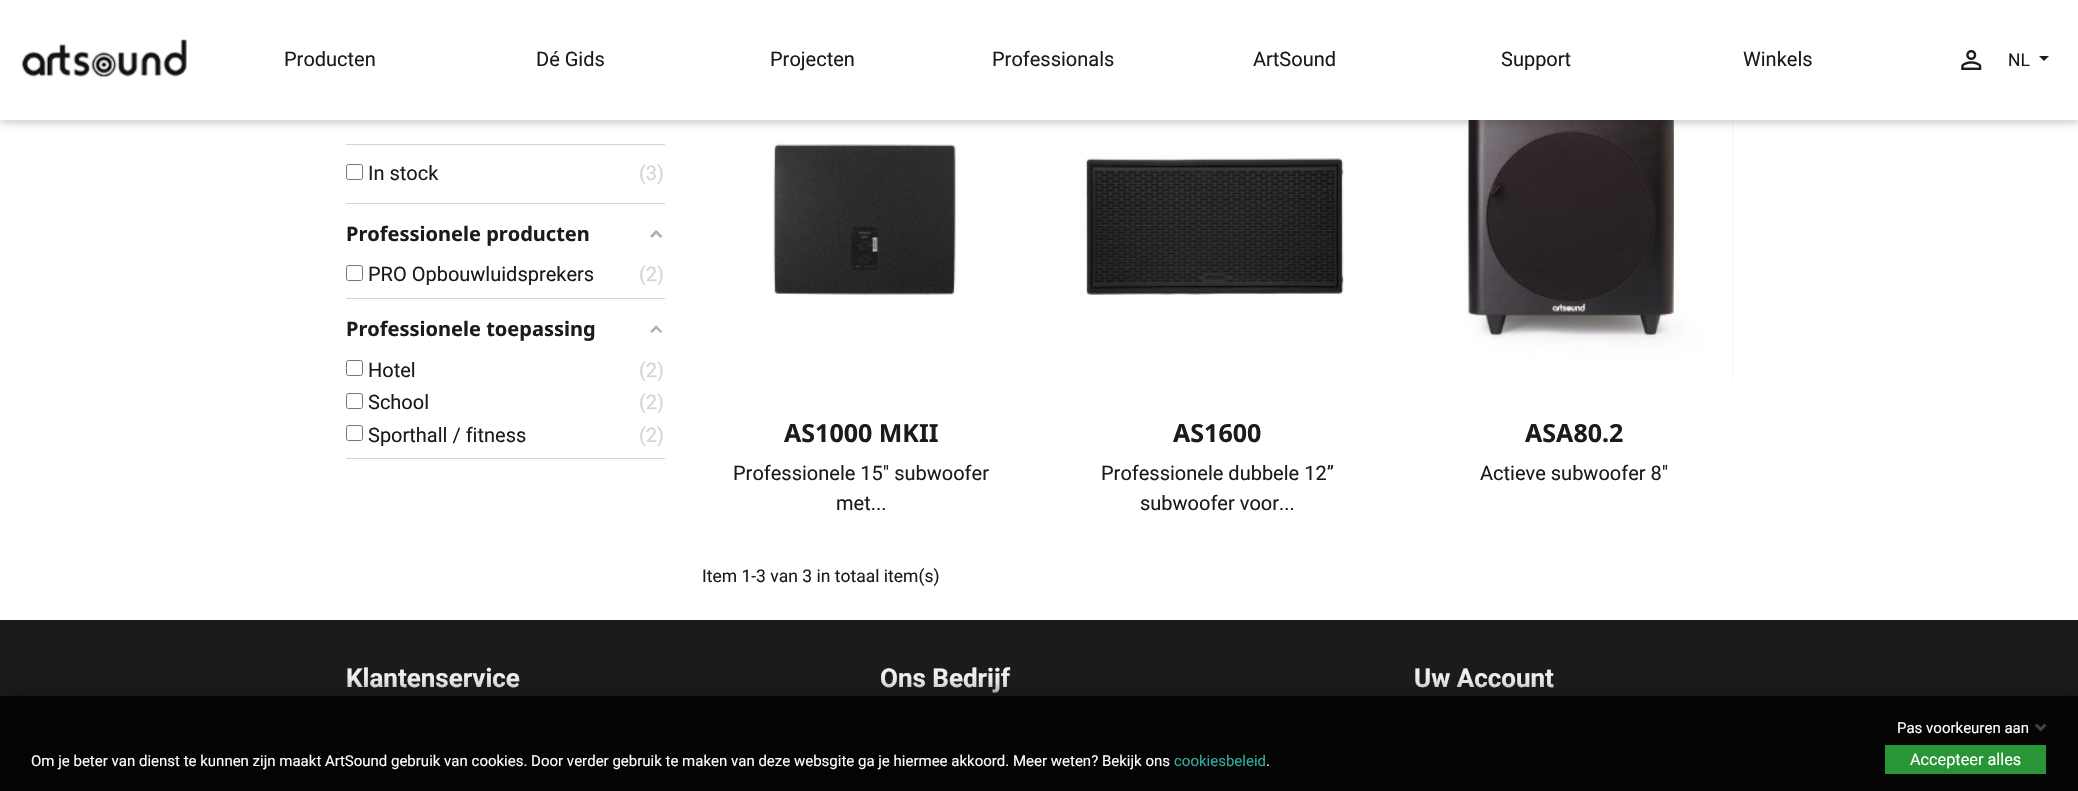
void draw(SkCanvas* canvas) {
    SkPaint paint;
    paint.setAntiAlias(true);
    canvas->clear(0xFFFFFFFF);
    canvas->drawImageRect(SkImages::DeferredFromEncodedData(SkData::MakeFromFileName("img3.png")), SkRect::MakeXYWH(703, 120, 317, 259), SkSamplingOptions());
    canvas->drawImageRect(SkImages::DeferredFromEncodedData(SkData::MakeFromFileName("img4.png")), SkRect::MakeXYWH(1058, 120, 318, 259), SkSamplingOptions());
    paint.setColor(0xFFF3F3F3);
    canvas->drawRect(SkRect::MakeXYWH(1732, 120, 1, 259), paint);
    canvas->drawImageRect(SkImages::DeferredFromEncodedData(SkData::MakeFromFileName("img5.png")), SkRect::MakeXYWH(1414, 120, 318, 259), SkSamplingOptions());
    paint.setColor(0x33000000);
    paint.setMaskFilter(SkMaskFilter::MakeBlur(kNormal_SkBlurStyle, 4));
    canvas->drawRect(SkRect::MakeXYWH(0, 3, 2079, 120), paint);
    paint.setMaskFilter(nullptr);
    paint.setColor(0xFFFFFFFF);
    canvas->drawRect(SkRect::MakeXYWH(0, 0, 2078, 120), paint);
    canvas->drawImageRect(SkImages::DeferredFromEncodedData(SkData::MakeFromFileName("img1.png")), SkRect::MakeXYWH(21, 39, 166, 38), SkSamplingOptions());
    SkFont font1(fontMgr->matchFamilyStyle("Roboto", SkFontStyle::Normal()), 20);
    font1.setSubpixel(true);
    paint.setColor(0xFF1B1B1B);
    canvas->drawString("Producten", 284, 66, font1, paint);
    canvas->drawString("Dé Gids", 536, 66, font1, paint);
    canvas->drawString("Projecten", 770, 66, font1, paint);
    canvas->drawString("Professionals", 992, 66, font1, paint);
    canvas->drawString("ArtSound", 1253, 66, font1, paint);
    canvas->drawString("Support", 1501, 66, font1, paint);
    canvas->drawString("Winkels", 1743, 66, font1, paint);
    canvas->drawImageRect(SkImages::DeferredFromEncodedData(SkData::MakeFromFileName("img2.png")), SkRect::MakeXYWH(1961, 50, 21, 20), SkSamplingOptions());
    SkFont font2(fontMgr->matchFamilyStyle("Roboto", SkFontStyle::Normal()), 17.5f);
    font2.setSubpixel(true);
    canvas->drawString("NL", 2008, 66, font2, paint);
    canvas->drawPath(SkPathBuilder().moveTo(2039, 56).lineTo(2049, 56).lineTo(2044, 61).close().detach(), paint);
    paint.setColor(0xFFD0D5DB);
    canvas->drawRect(SkRect::MakeXYWH(346, 144, 319, 1), paint);
    canvas->drawRect(SkRect::MakeXYWH(346, 203, 319, 1), paint);
    paint.setStyle(SkPaint::kStroke_Style);
    paint.setStrokeWidth(1);
    paint.setColor(0xFF767676);
    canvas->drawRoundRect(SkRect::MakeXYWH(346.5f, 164.5f, 16, 15), 2, 2, paint);
    paint.setStyle(SkPaint::kFill_Style);
    paint.setColor(0xFF1B1B1B);
    canvas->drawString("In stock", 368, 180, font1, paint);
    paint.setColor(0xFFD0D5DB);
    canvas->drawString("(3)", 639, 180, font1, paint);
    canvas->drawRect(SkRect::MakeXYWH(346, 298, 319, 1), paint);
    SkFont font3(fontMgr->matchFamilyStyle("Noto Sans", SkFontStyle::Bold()), 20);
    font3.setSubpixel(true);
    paint.setColor(0xFF1B1B1B);
    canvas->drawString("Professionele producten", 346, 241, font3, paint);
    paint.setColor(0xFFAAB2BD);
    canvas->drawPath(SkPathBuilder().moveTo(656, 230).lineTo(662.5f, 236).lineTo(660.5f, 238).lineTo(654.5f, 232).close().detach(), paint);
    canvas->drawPath(SkPathBuilder().moveTo(656, 230).lineTo(658, 232).lineTo(652, 238).lineTo(650, 236).close().detach(), paint);
    paint.setStyle(SkPaint::kStroke_Style);
    paint.setColor(0xFF767676);
    canvas->drawRoundRect(SkRect::MakeXYWH(346.5f, 265.5f, 16, 15), 2, 2, paint);
    paint.setStyle(SkPaint::kFill_Style);
    paint.setColor(0xFF1B1B1B);
    canvas->drawString("PRO Opbouwluidsprekers", 368, 281, font1, paint);
    paint.setColor(0xFFD0D5DB);
    canvas->drawString("(2)", 639, 281, font1, paint);
    canvas->drawRect(SkRect::MakeXYWH(346, 458, 319, 1), paint);
    paint.setColor(0xFF1B1B1B);
    canvas->drawString("Professionele toepassing", 346, 336, font3, paint);
    paint.setColor(0xFFAAB2BD);
    canvas->drawPath(SkPathBuilder().moveTo(656, 325.5f).lineTo(662.5f, 331.5f).lineTo(660.5f, 333).lineTo(654.5f, 327).close().detach(), paint);
    canvas->drawPath(SkPathBuilder().moveTo(656, 325.5f).lineTo(658, 327).lineTo(652, 333).lineTo(650, 331.5f).close().detach(), paint);
    paint.setStyle(SkPaint::kStroke_Style);
    paint.setColor(0xFF767676);
    canvas->drawRoundRect(SkRect::MakeXYWH(346.5f, 360.5f, 16, 15), 2, 2, paint);
    paint.setStyle(SkPaint::kFill_Style);
    paint.setColor(0xFF1B1B1B);
    canvas->drawString("Hotel", 368, 377, font1, paint);
    paint.setColor(0xFFD0D5DB);
    canvas->drawString("(2)", 639, 377, font1, paint);
    paint.setStyle(SkPaint::kStroke_Style);
    paint.setColor(0xFF767676);
    canvas->drawRoundRect(SkRect::MakeXYWH(346.5f, 393.5f, 16, 15), 2, 2, paint);
    paint.setStyle(SkPaint::kFill_Style);
    paint.setColor(0xFF1B1B1B);
    canvas->drawString("School", 368, 409, font1, paint);
    paint.setColor(0xFFD0D5DB);
    canvas->drawString("(2)", 639, 409, font1, paint);
    paint.setStyle(SkPaint::kStroke_Style);
    paint.setColor(0xFF767676);
    canvas->drawRoundRect(SkRect::MakeXYWH(346.5f, 425.5f, 16, 15), 2, 2, paint);
    paint.setStyle(SkPaint::kFill_Style);
    paint.setColor(0xFF1B1B1B);
    canvas->drawString("Sporthall / fitness", 368, 442, font1, paint);
    paint.setColor(0xFFD0D5DB);
    canvas->drawString("(2)", 639, 442, font1, paint);
    SkFont font4(fontMgr->matchFamilyStyle("Noto Sans", SkFontStyle::Bold()), 25);
    font4.setSubpixel(true);
    paint.setColor(0xFF1B1B1B);
    canvas->drawString("AS1000 MKII", 784, 442, font4, paint);
    canvas->drawString("Professionele 15\" subwoofer", 733, 480, font1, paint);
    canvas->drawString("met...", 836, 510, font1, paint);
    canvas->drawString("AS1600", 1173, 442, font4, paint);
    canvas->drawString("Professionele dubbele 12”", 1101, 480, font1, paint);
    canvas->drawString("subwoofer voor...", 1140, 510, font1, paint);
    canvas->drawString("ASA80.2", 1525, 442, font4, paint);
    canvas->drawString("Actieve subwoofer 8\"", 1480, 480, font1, paint);
    canvas->drawString("Item 1-3 van 3 in totaal item(s)", 702, 582, font2, paint);
    canvas->drawRect(SkRect::MakeXYWH(0, 620, 2078, 171), paint);
    SkFont font5(fontMgr->matchFamilyStyle("Roboto", SkFontStyle::Bold()), 26);
    font5.setSubpixel(true);
    paint.setColor(0xFFF1F1F1);
    canvas->drawString("Klantenservice", 346, 687, font5, paint);
    canvas->drawString("Ons Bedrijf", 880, 687, font5, paint);
    canvas->drawString("Uw Account", 1414, 687, font5, paint);
    canvas->save();
    canvas->clipPath(SkPathBuilder(SkPathFillType::kEvenOdd).moveTo(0, 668).lineTo(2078, 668).lineTo(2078, 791).lineTo(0, 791).close().moveTo(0, 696).lineTo(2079, 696).lineTo(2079, 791).lineTo(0, 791).close().detach(), true);
    paint.setColor(0xFF121212);
    paint.setMaskFilter(SkMaskFilter::MakeBlur(kNormal_SkBlurStyle, 9));
    canvas->drawRect(SkRect::MakeXYWH(0, 696, 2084, 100), paint);
    paint.setMaskFilter(nullptr);
    canvas->restore();
    paint.setColor(0xDE000000);
    canvas->drawRect(SkRect::MakeXYWH(0, 696, 2078, 95), paint);
    SkFont font6(fontMgr->matchFamilyStyle("Roboto", SkFontStyle::Normal()), 15);
    font6.setSubpixel(true);
    paint.setColor(0xFFFFFFFF);
    canvas->drawString("Om je beter van dienst te kunnen zijn maakt ArtSound gebruik van cookies. Door verder gebruik te maken van deze websgite ga je hiermee akkoord. Meer weten? Bekijk ons", 31, 766, font6, paint);
    paint.setColor(0xFF2FAF9F);
    canvas->drawString("cookiesbeleid", 1174, 766, font6, paint);
    paint.setColor(0xFFFFFFFF);
    canvas->drawString(".", 1266, 766, font6, paint);
    canvas->drawString("Pas voorkeuren aan", 1897, 733, font6, paint);
    canvas->drawImageRect(SkImages::DeferredFromEncodedData(SkData::MakeFromFileName("img6.png")), SkRect::MakeXYWH(2034, 723, 13, 9), SkSamplingOptions());
    paint.setColor(0xFF289537);
    canvas->drawRect(SkRect::MakeXYWH(1885, 745, 161, 29), paint);
    SkFont font7(fontMgr->matchFamilyStyle("Roboto", SkFontStyle::Normal()), 16.25f);
    font7.setSubpixel(true);
    paint.setColor(0xFFFFFFFF);
    canvas->drawString("Accepteer alles", 1910, 765, font7, paint);
}
